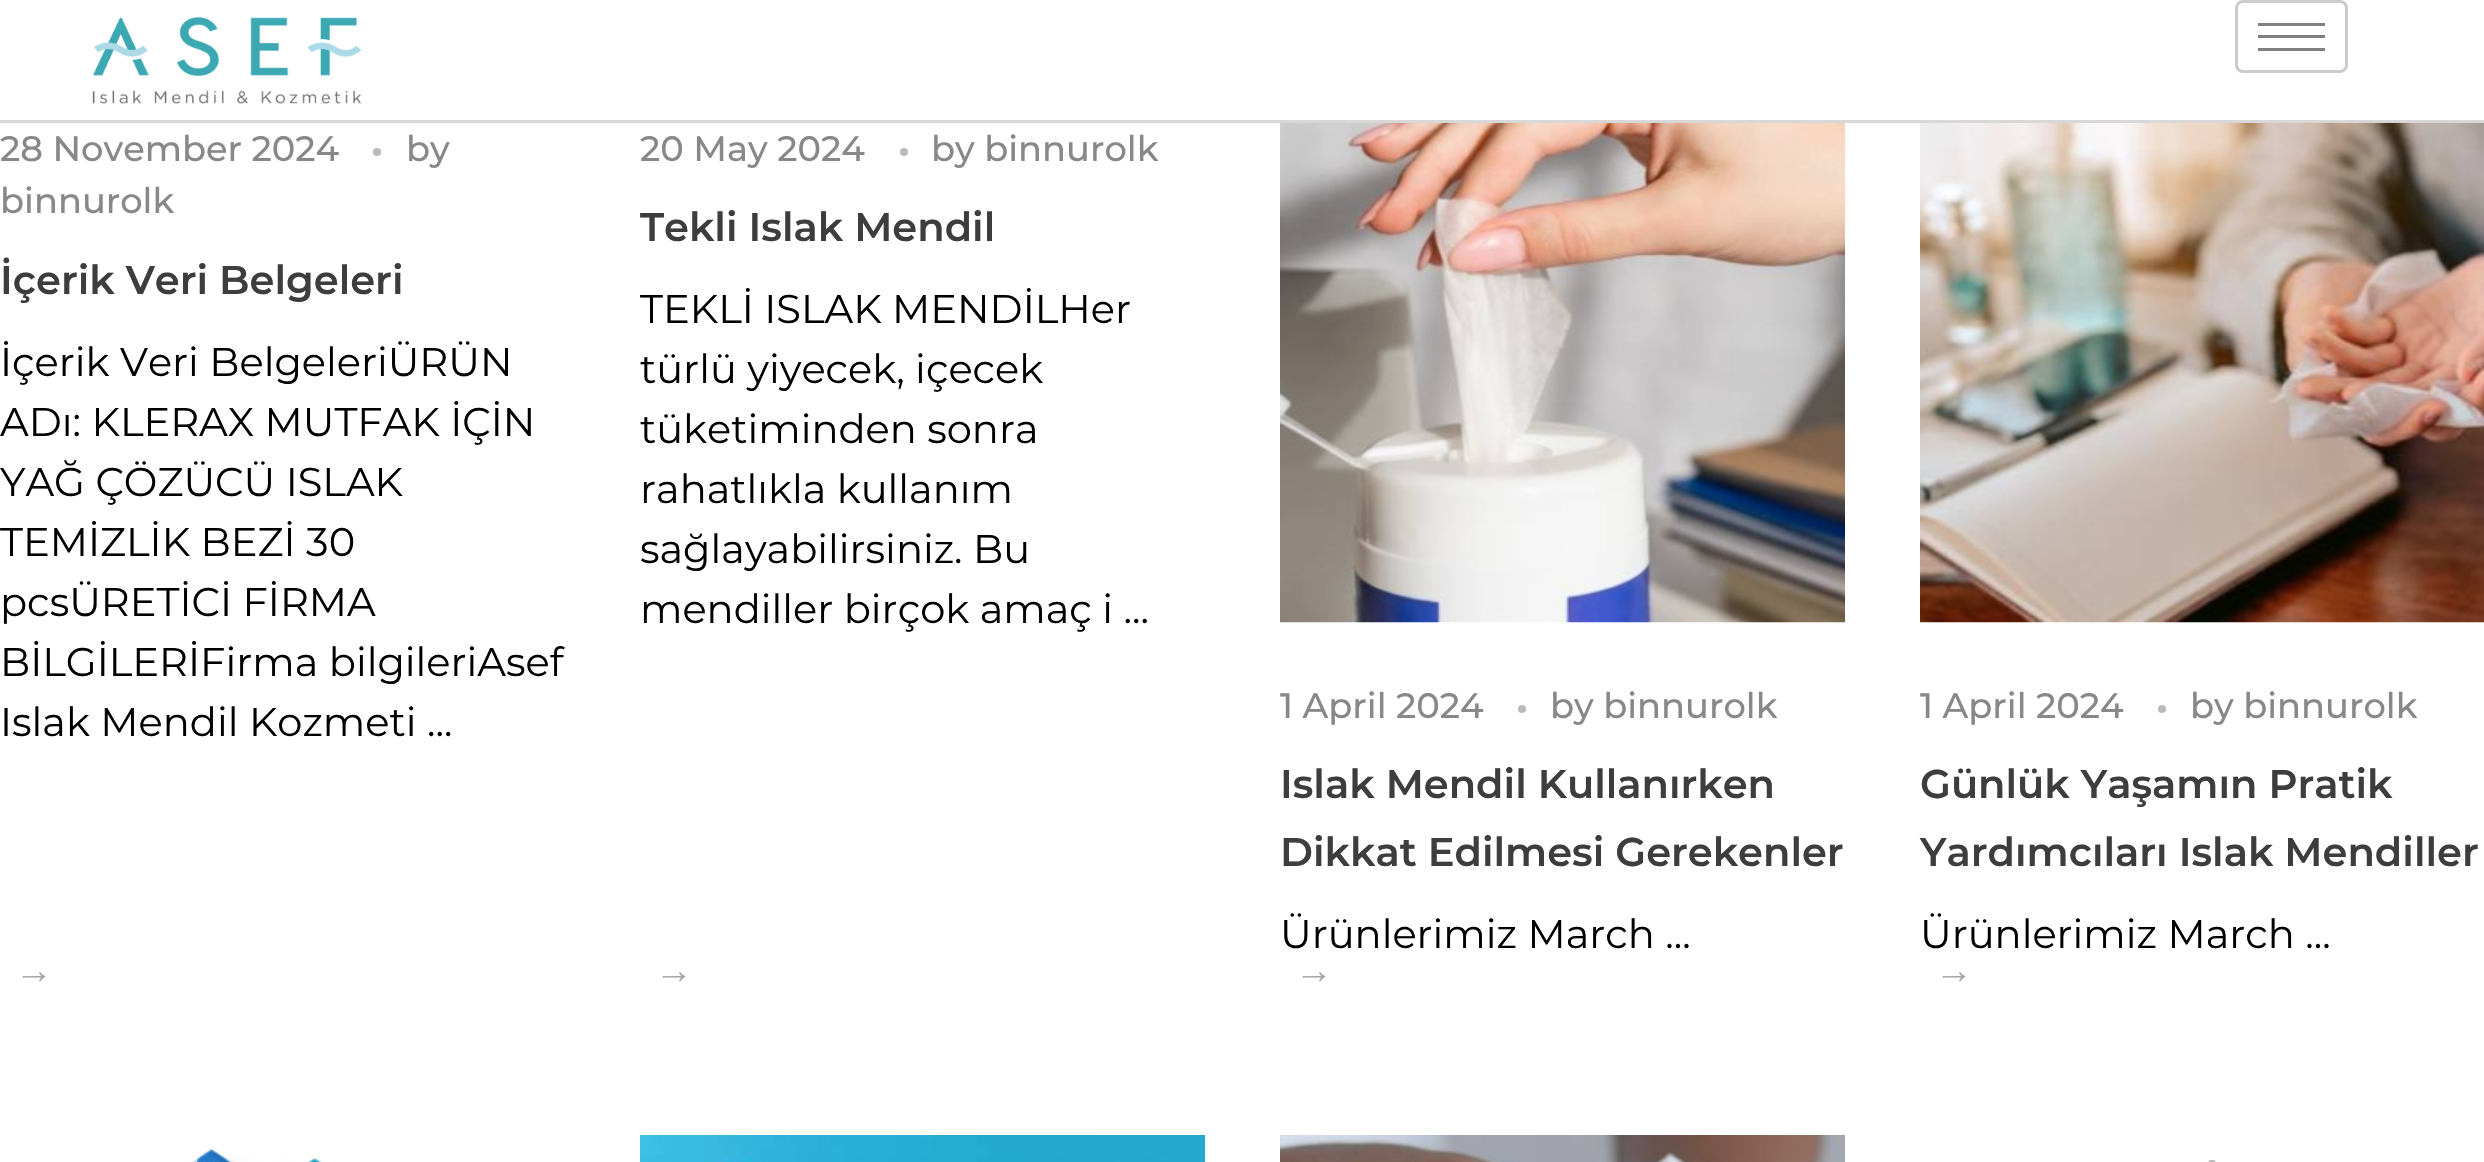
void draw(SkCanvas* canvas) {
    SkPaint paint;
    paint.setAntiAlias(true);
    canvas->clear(0xFFFFFFFF);
    canvas->drawImageRect(SkImages::DeferredFromEncodedData(SkData::MakeFromFileName("img2.png")), SkRect::MakeXYWH(1280, 122, 565, 501), SkSamplingOptions());
    canvas->drawImageRect(SkImages::DeferredFromEncodedData(SkData::MakeFromFileName("img3.png")), SkRect::MakeXYWH(1920, 122, 564, 501), SkSamplingOptions());
    paint.setColor(0xD6D1D1D1);
    canvas->drawRect(SkRect::MakeXYWH(0, 120, 2484, 3), paint);
    canvas->drawImageRect(SkImages::DeferredFromEncodedData(SkData::MakeFromFileName("img1.png")), SkRect::MakeXYWH(92, 16, 269, 88), SkSamplingOptions());
    paint.setStyle(SkPaint::kStroke_Style);
    paint.setStrokeWidth(3);
    paint.setColor(0xFFCCCCCC);
    canvas->drawRoundRect(SkRect::MakeXYWH(2236.5f, 1.5f, 110, 70), 6.5f, 6.5f, paint);
    paint.setStyle(SkPaint::kFill_Style);
    paint.setColor(0xFF808080);
    canvas->drawRect(SkRect::MakeXYWH(2258, 23, 67, 3), paint);
    canvas->drawRect(SkRect::MakeXYWH(2258, 35, 67, 3), paint);
    canvas->drawRect(SkRect::MakeXYWH(2258, 48, 67, 3), paint);
    SkFont font1(fontMgr->matchFamilyStyle("Montserrat", SkFontStyle(500, SkFontStyle::kNormal_Width, SkFontStyle::kUpright_Slant)), 35.25f);
    font1.setSubpixel(true);
    paint.setColor(0xFF888888);
    canvas->drawString("28 November 2024", 0, 161, font1, paint);
    paint.setColor(0xFFBBBBBB);
    canvas->drawCircle(377, 152, 4, paint);
    paint.setColor(0xFF888888);
    canvas->drawString("by", 406, 161, font1, paint);
    canvas->drawString("binnurolk", 0, 213, font1, paint);
    SkFont font2(fontMgr->matchFamilyStyle("Montserrat", SkFontStyle(600, SkFontStyle::kNormal_Width, SkFontStyle::kUpright_Slant)), 40);
    font2.setSubpixel(true);
    paint.setColor(0xFF3D3D3D);
    canvas->drawString("İçerik Veri Belgeleri", 0, 294, font2, paint);
    SkFont font3(fontMgr->matchFamilyStyle("Montserrat", SkFontStyle::Normal()), 40);
    font3.setSubpixel(true);
    paint.setColor(0xFF000000);
    canvas->drawString("İçerik Veri BelgeleriÜRÜN", 0, 376, font3, paint);
    canvas->drawString("ADı: KLERAX MUTFAK İÇİN", 0, 436, font3, paint);
    canvas->drawString("YAĞ ÇÖZÜCÜ ISLAK", 0, 496, font3, paint);
    canvas->drawString("TEMİZLİK BEZİ 30", 0, 556, font3, paint);
    canvas->drawString("pcsÜRETİCİ FİRMA", 0, 616, font3, paint);
    canvas->drawString("BİLGİLERİFirma bilgileriAsef", 0, 676, font3, paint);
    canvas->drawString("Islak Mendil Kozmeti ...", 0, 736, font3, paint);
    SkFont font4(fontMgr->matchFamilyStyle("Liberation Sans", SkFontStyle::Normal()), 38);
    font4.setSubpixel(true);
    paint.setColor(0xFFAAAAAA);
    canvas->drawString("→", 15, 983, font4, paint);
    paint.setColor(0xFF888888);
    canvas->drawString("20 May 2024", 640, 161, font1, paint);
    paint.setColor(0xFFBBBBBB);
    canvas->drawCircle(904, 152, 4, paint);
    paint.setColor(0xFF888888);
    canvas->drawString("by binnurolk", 931, 161, font1, paint);
    paint.setColor(0xFF3D3D3D);
    canvas->drawString("Tekli Islak Mendil", 640, 241, font2, paint);
    paint.setColor(0xFF000000);
    canvas->drawString("TEKLİ ISLAK MENDİLHer", 640, 323, font3, paint);
    canvas->drawString("türlü yiyecek, içecek", 640, 383, font3, paint);
    canvas->drawString("tüketiminden sonra", 640, 443, font3, paint);
    canvas->drawString("rahatlıkla kullanım", 640, 503, font3, paint);
    canvas->drawString("sağlayabilirsiniz. Bu", 640, 563, font3, paint);
    canvas->drawString("mendiller birçok amaç i ...", 640, 623, font3, paint);
    paint.setColor(0xFFAAAAAA);
    canvas->drawString("→", 655, 983, font4, paint);
    paint.setColor(0xFF888888);
    canvas->drawString("1 April 2024", 1280, 718, font1, paint);
    paint.setColor(0xFFBBBBBB);
    canvas->drawCircle(1522, 709, 4, paint);
    paint.setColor(0xFF888888);
    canvas->drawString("by binnurolk", 1550, 718, font1, paint);
    paint.setColor(0xFF3D3D3D);
    canvas->drawString("Islak Mendil Kullanırken", 1280, 798, font2, paint);
    canvas->drawString("Dikkat Edilmesi Gerekenler", 1280, 866, font2, paint);
    paint.setColor(0xFF000000);
    canvas->drawString("Ürünlerimiz March ...", 1280, 948, font3, paint);
    paint.setColor(0xFFAAAAAA);
    canvas->drawString("→", 1295, 983, font4, paint);
    paint.setColor(0xFF888888);
    canvas->drawString("1 April 2024", 1920, 718, font1, paint);
    paint.setColor(0xFFBBBBBB);
    canvas->drawCircle(2162, 709, 4, paint);
    paint.setColor(0xFF888888);
    canvas->drawString("by binnurolk", 2190, 718, font1, paint);
    paint.setColor(0xFF3D3D3D);
    canvas->drawString("Günlük Yaşamın Pratik", 1920, 798, font2, paint);
    canvas->drawString("Yardımcıları Islak Mendiller", 1920, 866, font2, paint);
    paint.setColor(0xFF000000);
    canvas->drawString("Ürünlerimiz March ...", 1920, 948, font3, paint);
    paint.setColor(0xFFAAAAAA);
    canvas->drawString("→", 1935, 983, font4, paint);
    canvas->drawImageRect(SkImages::DeferredFromEncodedData(SkData::MakeFromFileName("img4.png")), SkRect::MakeXYWH(191, 1148, 131, 14), SkSamplingOptions());
    canvas->drawImageRect(SkImages::DeferredFromEncodedData(SkData::MakeFromFileName("img5.png")), SkRect::MakeXYWH(640, 1135, 565, 27), SkSamplingOptions());
    canvas->drawImageRect(SkImages::DeferredFromEncodedData(SkData::MakeFromFileName("img6.png")), SkRect::MakeXYWH(1280, 1135, 565, 27), SkSamplingOptions());
    paint.setColor(0xFFBBBBBB);
    canvas->drawRoundRect(SkRect::MakeXYWH(2208, 1160, 8, 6), 4, 4, paint);
}
